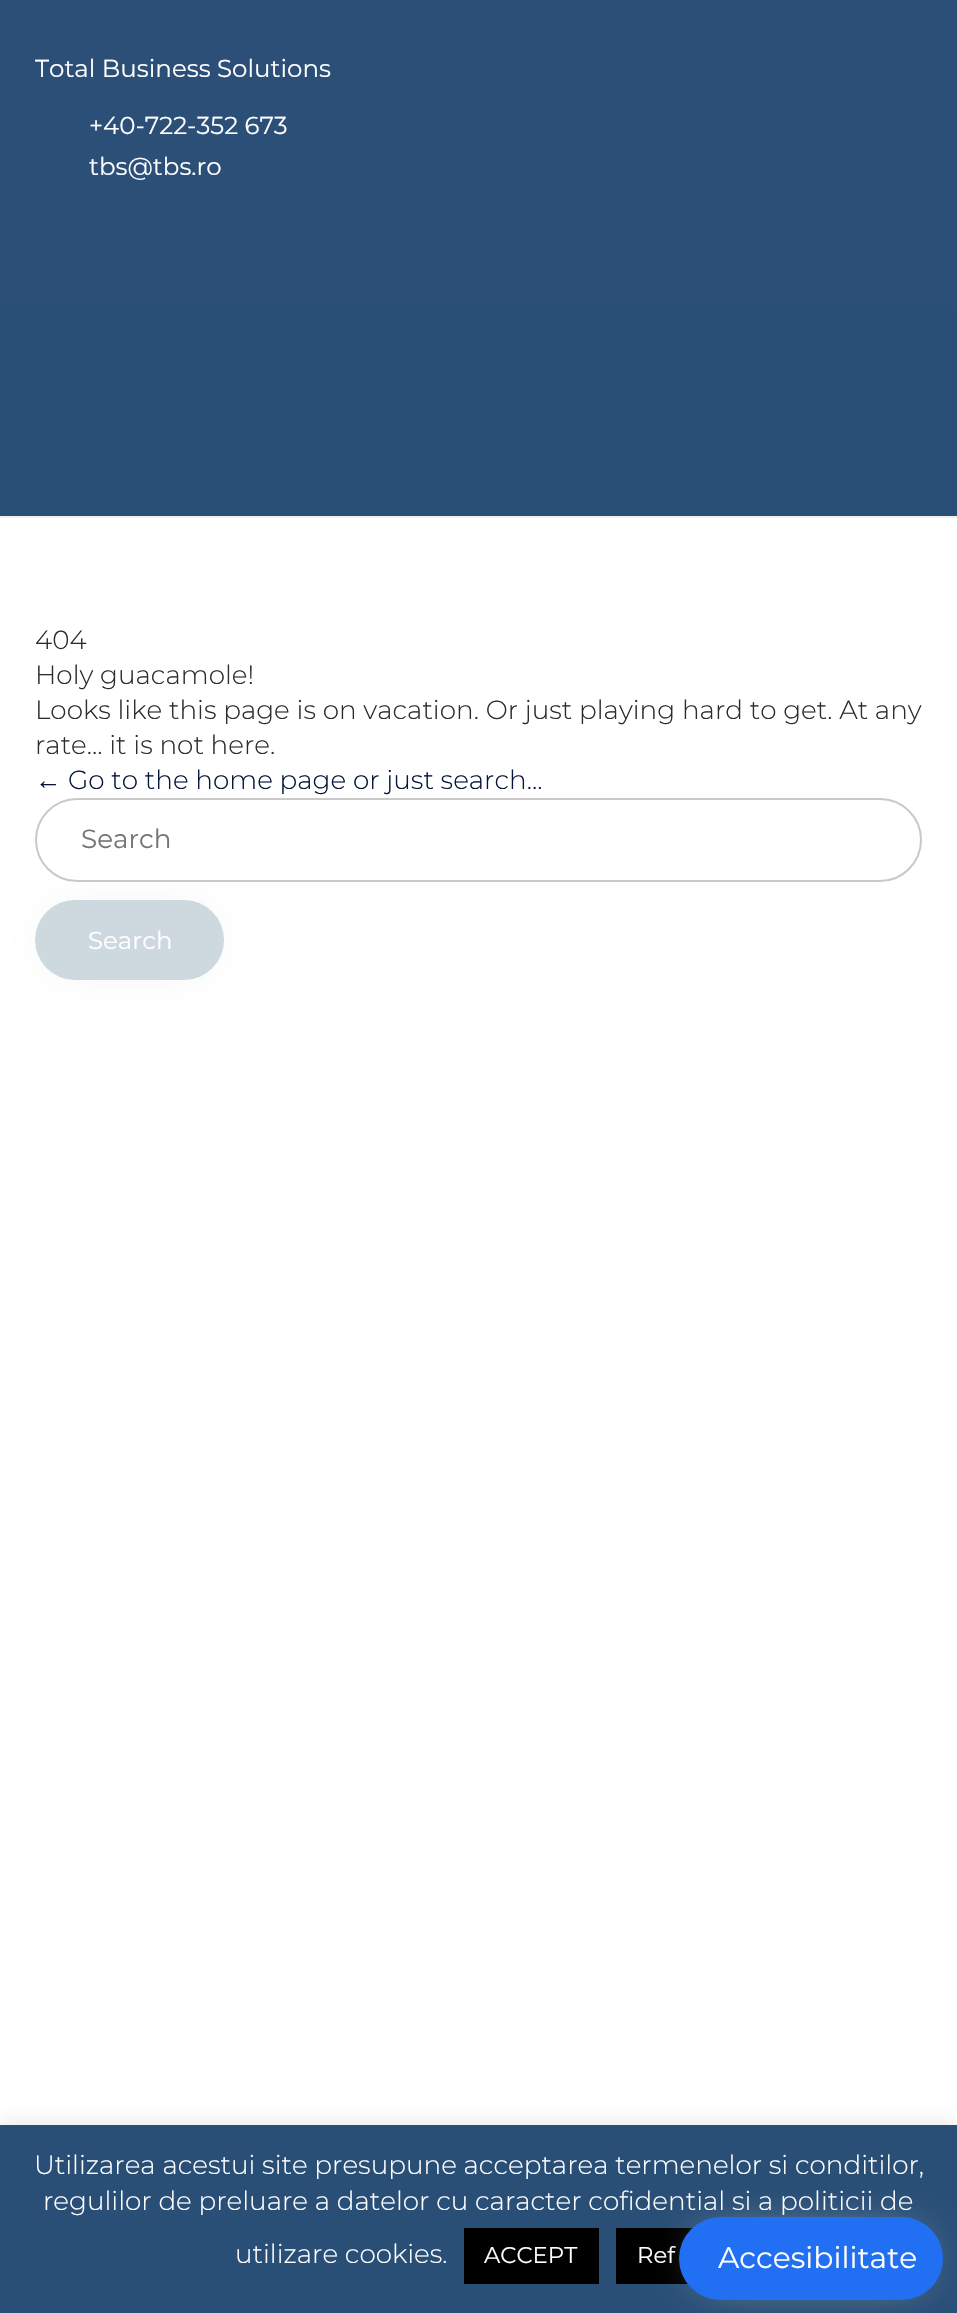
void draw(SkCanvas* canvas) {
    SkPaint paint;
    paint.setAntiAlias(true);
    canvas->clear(0xFFFFFFFF);
    paint.setColor(0xFF2A4F77);
    canvas->drawRect(SkRect::MakeXYWH(0, 306, 957, 210), paint);
    paint.setColor(0xFF2B4F77);
    canvas->drawRect(SkRect::MakeXYWH(0, 0, 957, 306), paint);
    SkFont font1(fontMgr->matchFamilyStyle("Montserrat", SkFontStyle::Normal()), 24.5f);
    font1.setSubpixel(true);
    paint.setColor(0xFFFFFFFF);
    canvas->drawString("Total Business Solutions", 35, 77, font1, paint);
    canvas->drawString("+40-722-352 673", 89, 134, font1, paint);
    canvas->drawString("tbs@tbs.ro", 89, 175, font1, paint);
    paint.setColor(0xFFF0EFEF);
    canvas->drawRect(SkRect::MakeXYWH(0, 516, 957, 2), paint);
    SkFont font2(fontMgr->matchFamilyStyle("Montserrat", SkFontStyle(300, SkFontStyle::kNormal_Width, SkFontStyle::kUpright_Slant)), 26.25f);
    font2.setSubpixel(true);
    paint.setColor(0xFF2C2C2C);
    canvas->drawString("404", 35, 649, font2, paint);
    canvas->drawString("Holy guacamole!", 35, 684, font2, paint);
    canvas->drawString("Looks like this page is on vacation. Or just playing hard to get. At any", 35, 719, font2, paint);
    canvas->drawString("rate... it is not here.", 35, 754, font2, paint);
    SkFont font3(fontMgr->matchFamilyStyle("Liberation Serif", SkFontStyle::Normal()), 26.25f);
    font3.setSubpixel(true);
    paint.setColor(0xFF06163A);
    canvas->drawString("←", 35, 789, font3, paint);
    canvas->drawString("Go to the home page or just search...", 68, 789, font2, paint);
    paint.setStyle(SkPaint::kStroke_Style);
    paint.setStrokeWidth(2);
    paint.setColor(0xFFC9C9C9);
    canvas->drawRoundRect(SkRect::MakeXYWH(36, 799, 885, 82), 41, 41, paint);
    SkFont font4(fontMgr->matchFamilyStyle("Montserrat", SkFontStyle::Normal()), 26.25f);
    font4.setSubpixel(true);
    paint.setStyle(SkPaint::kFill_Style);
    paint.setColor(0xFF757575);
    canvas->drawString("Search", 81, 848, font4, paint);
    paint.setColor(0xFFCED9DF);
    paint.setMaskFilter(SkMaskFilter::MakeBlur(kNormal_SkBlurStyle, 22));
    canvas->drawRoundRect(SkRect::MakeXYWH(60, 924, 140, 32), 16, 16, paint);
    paint.setMaskFilter(nullptr);
    canvas->drawRoundRect(SkRect::MakeXYWH(35, 900, 189, 80), 40, 40, paint);
    paint.setColor(0xFFFFFFFF);
    canvas->drawString("Search", 88, 949, font1, paint);
    paint.setColor(0x4DACABAB);
    paint.setMaskFilter(SkMaskFilter::MakeBlur(kNormal_SkBlurStyle, 9));
    canvas->drawRect(SkRect::MakeXYWH(0, 2123, 957, 189), paint);
    paint.setMaskFilter(nullptr);
    paint.setColor(0xFF2A4F77);
    canvas->drawRect(SkRect::MakeXYWH(0, 2125, 957, 188), paint);
    paint.setColor(0xFFFFFFFF);
    canvas->drawString("Utilizarea acestui site presupune acceptarea termenelor si conditilor,", 34, 2174, font2, paint);
    canvas->drawString("regulilor de preluare a datelor cu caracter cofidential si a politicii de", 43, 2210, font2, paint);
    canvas->drawString("utilizare cookies.", 235, 2263, font2, paint);
    paint.setColor(0xFF000000);
    canvas->drawRect(SkRect::MakeXYWH(464, 2228, 135, 56), paint);
    SkFont font5(fontMgr->matchFamilyStyle("Montserrat", SkFontStyle::Normal()), 22.75f);
    font5.setSubpixel(true);
    paint.setColor(0xFFFFFFFF);
    canvas->drawString("ACCEPT", 484, 2263, font5, paint);
    paint.setColor(0xFF000000);
    canvas->drawRect(SkRect::MakeXYWH(616, 2228, 77, 56), paint);
    paint.setColor(0xFFFFFFFF);
    canvas->drawString("Ref", 637, 2263, font5, paint);
    paint.setColor(0xFFCED9DF);
    paint.setMaskFilter(SkMaskFilter::MakeBlur(kNormal_SkBlurStyle, 22));
    canvas->drawRoundRect(SkRect::MakeXYWH(704, 2242, 215, 33), 16.5f, 16.5f, paint);
    paint.setMaskFilter(nullptr);
    paint.setColor(0xFF216FF3);
    canvas->drawRoundRect(SkRect::MakeXYWH(679, 2217, 264, 83), 41.5f, 41.5f, paint);
    SkFont font6(fontMgr->matchFamilyStyle("Montserrat", SkFontStyle::Normal()), 29.75f);
    font6.setSubpixel(true);
    paint.setColor(0xFFFFFFFF);
    canvas->drawString("Accesibilitate", 718, 2268, font6, paint);
}
